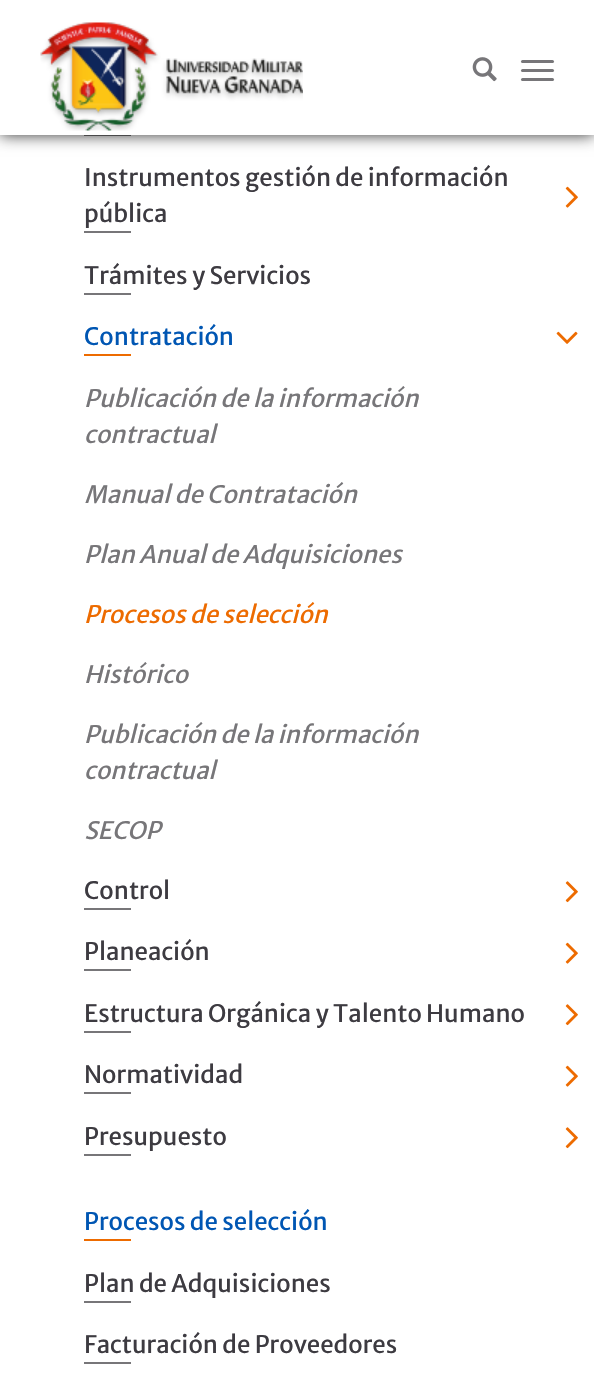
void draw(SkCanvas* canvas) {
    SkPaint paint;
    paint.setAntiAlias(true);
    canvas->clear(0xFFFFFFFF);
    paint.setColor(0xFF777679);
    canvas->drawRect(SkRect::MakeXYWH(84, 135, 47, 1), paint);
    paint.setColor(0xCC000000);
    paint.setMaskFilter(SkMaskFilter::MakeBlur(kNormal_SkBlurStyle, 7.5f));
    canvas->drawRect(SkRect::MakeXYWH(0, 0, 594, 135), paint);
    paint.setMaskFilter(nullptr);
    paint.setColor(0xFFFFFFFF);
    canvas->drawRect(SkRect::MakeXYWH(0, 0, 594, 135), paint);
    canvas->drawImageRect(SkImages::DeferredFromEncodedData(SkData::MakeFromFileName("img1.png")), SkRect::MakeXYWH(40, 22, 263, 109), SkSamplingOptions());
    canvas->drawImageRect(SkImages::DeferredFromEncodedData(SkData::MakeFromFileName("img2.png")), SkRect::MakeXYWH(472, 57, 25, 25), SkSamplingOptions());
    paint.setColor(0xFF777679);
    canvas->drawRoundRect(SkRect::MakeXYWH(521, 60, 33, 3), 1.5f, 1.5f, paint);
    canvas->drawRoundRect(SkRect::MakeXYWH(521, 69, 33, 3), 1.5f, 1.5f, paint);
    canvas->drawRoundRect(SkRect::MakeXYWH(521, 78, 33, 3), 1.5f, 1.5f, paint);
    SkFont font1(fontMgr->matchFamilyStyle("Merriweather Sans", SkFontStyle::Normal()), 24);
    font1.setSubpixel(true);
    paint.setColor(0xFF3D3B41);
    canvas->drawString("Instrumentos gestión de información", 84, 186, font1, paint);
    canvas->drawImageRect(SkImages::DeferredFromEncodedData(SkData::MakeFromFileName("img3.png")), SkRect::MakeXYWH(565, 186, 13, 22), SkSamplingOptions());
    canvas->drawString("pública", 84, 222, font1, paint);
    paint.setColor(0xFF777679);
    canvas->drawRect(SkRect::MakeXYWH(84, 231, 47, 2), paint);
    paint.setColor(0xFF3D3B41);
    canvas->drawString("Trámites y Servicios", 84, 284, font1, paint);
    paint.setColor(0xFF777679);
    canvas->drawRect(SkRect::MakeXYWH(84, 293, 47, 2), paint);
    paint.setColor(0xFF0056B3);
    canvas->drawString("Contratación", 84, 345, font1, paint);
    canvas->drawImageRect(SkImages::DeferredFromEncodedData(SkData::MakeFromFileName("img4.png")), SkRect::MakeXYWH(556, 331, 22, 13), SkSamplingOptions());
    paint.setColor(0xFFED6B00);
    canvas->drawRect(SkRect::MakeXYWH(84, 354, 47, 2), paint);
    SkFont font2(fontMgr->matchFamilyStyle("Merriweather Sans", SkFontStyle::Italic()), 24);
    font2.setSubpixel(true);
    paint.setColor(0xFF777679);
    canvas->drawString("Publicación de la información", 84, 407, font2, paint);
    canvas->drawString("contractual", 84, 443, font2, paint);
    canvas->drawString("Manual de Contratación", 84, 503, font2, paint);
    canvas->drawString("Plan Anual de Adquisiciones", 84, 563, font2, paint);
    paint.setColor(0xFFED6B00);
    canvas->drawString("Procesos de selección", 84, 623, font2, paint);
    paint.setColor(0xFF777679);
    canvas->drawString("Histórico", 84, 683, font2, paint);
    canvas->drawString("Publicación de la información", 84, 743, font2, paint);
    canvas->drawString("contractual", 84, 779, font2, paint);
    canvas->drawString("SECOP", 84, 839, font2, paint);
    paint.setColor(0xFF3D3B41);
    canvas->drawString("Control", 84, 899, font1, paint);
    canvas->drawImageRect(SkImages::DeferredFromEncodedData(SkData::MakeFromFileName("img5.png")), SkRect::MakeXYWH(565, 881, 13, 22), SkSamplingOptions());
    paint.setColor(0xFF777679);
    canvas->drawRect(SkRect::MakeXYWH(84, 908, 47, 2), paint);
    paint.setColor(0xFF3D3B41);
    canvas->drawString("Planeación", 84, 960, font1, paint);
    canvas->drawImageRect(SkImages::DeferredFromEncodedData(SkData::MakeFromFileName("img3.png")), SkRect::MakeXYWH(565, 942, 13, 22), SkSamplingOptions());
    paint.setColor(0xFF777679);
    canvas->drawRect(SkRect::MakeXYWH(84, 969, 47, 2), paint);
    paint.setColor(0xFF3D3B41);
    canvas->drawString("Estructura Orgánica y Talento Humano", 84, 1022, font1, paint);
    canvas->drawImageRect(SkImages::DeferredFromEncodedData(SkData::MakeFromFileName("img5.png")), SkRect::MakeXYWH(565, 1004, 13, 22), SkSamplingOptions());
    paint.setColor(0xFF777679);
    canvas->drawRect(SkRect::MakeXYWH(84, 1031, 47, 2), paint);
    paint.setColor(0xFF3D3B41);
    canvas->drawString("Normatividad", 84, 1083, font1, paint);
    canvas->drawImageRect(SkImages::DeferredFromEncodedData(SkData::MakeFromFileName("img3.png")), SkRect::MakeXYWH(565, 1065, 13, 22), SkSamplingOptions());
    paint.setColor(0xFF777679);
    canvas->drawRect(SkRect::MakeXYWH(84, 1092, 47, 2), paint);
    paint.setColor(0xFF3D3B41);
    canvas->drawString("Presupuesto", 84, 1145, font1, paint);
    canvas->drawImageRect(SkImages::DeferredFromEncodedData(SkData::MakeFromFileName("img5.png")), SkRect::MakeXYWH(565, 1127, 13, 22), SkSamplingOptions());
    paint.setColor(0xFF777679);
    canvas->drawRect(SkRect::MakeXYWH(84, 1154, 47, 2), paint);
    paint.setColor(0xFF0056B3);
    canvas->drawString("Procesos de selección", 84, 1230, font1, paint);
    paint.setColor(0xFFED6B00);
    canvas->drawRect(SkRect::MakeXYWH(84, 1239, 47, 2), paint);
    paint.setColor(0xFF3D3B41);
    canvas->drawString("Plan de Adquisiciones", 84, 1292, font1, paint);
    paint.setColor(0xFF777679);
    canvas->drawRect(SkRect::MakeXYWH(84, 1301, 47, 2), paint);
    paint.setColor(0xFF3D3B41);
    canvas->drawString("Facturación de Proveedores", 84, 1353, font1, paint);
    paint.setColor(0xFF777679);
    canvas->drawRect(SkRect::MakeXYWH(84, 1362, 47, 2), paint);
}
